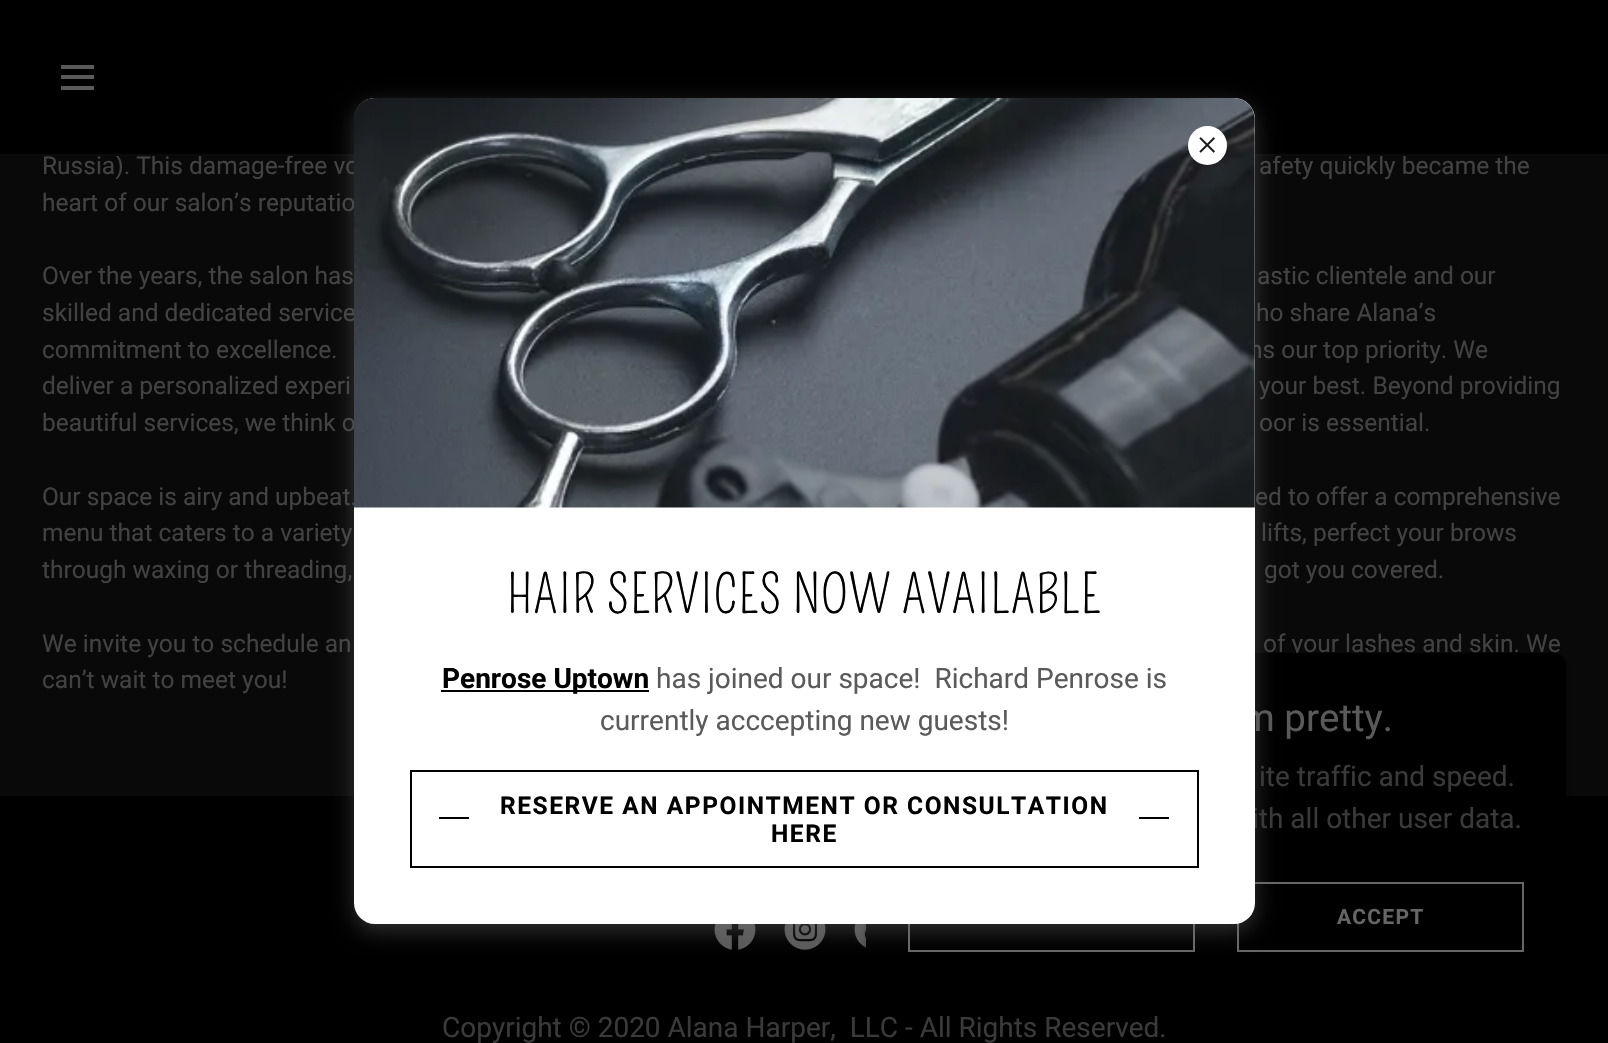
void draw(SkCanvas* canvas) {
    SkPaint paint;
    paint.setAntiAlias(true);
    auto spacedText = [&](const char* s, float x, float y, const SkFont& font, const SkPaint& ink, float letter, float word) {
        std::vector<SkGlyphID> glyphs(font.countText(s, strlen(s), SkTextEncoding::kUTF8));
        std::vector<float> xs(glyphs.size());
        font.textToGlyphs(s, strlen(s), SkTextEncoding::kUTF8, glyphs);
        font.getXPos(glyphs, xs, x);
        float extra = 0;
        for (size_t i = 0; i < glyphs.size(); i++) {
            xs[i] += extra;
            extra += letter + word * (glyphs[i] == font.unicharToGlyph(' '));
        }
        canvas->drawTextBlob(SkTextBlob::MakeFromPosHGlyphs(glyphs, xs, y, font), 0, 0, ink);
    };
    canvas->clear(0xFF000000);
    paint.setColor(0xFF5A5A5A);
    canvas->drawRect(SkRect::MakeXYWH(61, 65, 33, 4), paint);
    canvas->drawRect(SkRect::MakeXYWH(61, 75, 33, 4), paint);
    canvas->drawRect(SkRect::MakeXYWH(61, 86, 33, 4), paint);
    paint.setColor(0xFF090909);
    canvas->drawRect(SkRect::MakeXYWH(0, 156, 1608, 640), paint);
    SkFont font1(fontMgr->matchFamilyStyle("Roboto", SkFontStyle::Normal()), 24.5f);
    font1.setSubpixel(true);
    paint.setColor(0xFF424242);
    canvas->drawString("Russia). This damage-free vo", 42, 174, font1, paint);
    canvas->drawString("afety quickly became the", 1259, 174, font1, paint);
    paint.setColor(0xFF0B0B0B);
    canvas->drawRect(SkRect::MakeXYWH(0, 154, 1608, 2), paint);
    paint.setColor(0xFF424242);
    canvas->drawString("heart of our salon’s reputatio", 42, 211, font1, paint);
    canvas->drawString("Over the years, the salon has", 42, 284, font1, paint);
    canvas->drawString("astic clientele and our", 1257, 284, font1, paint);
    canvas->drawString("skilled and dedicated service", 42, 321, font1, paint);
    canvas->drawString("ho share Alana’s", 1256, 321, font1, paint);
    canvas->drawString("commitment to excellence.", 42, 358, font1, paint);
    canvas->drawString("ns our top priority. We", 1249, 358, font1, paint);
    canvas->drawString("deliver a personalized experi", 42, 394, font1, paint);
    canvas->drawString("your best. Beyond providing", 1259, 394, font1, paint);
    canvas->drawString("beautiful services, we think o", 42, 431, font1, paint);
    canvas->drawString("oor is essential.", 1259, 431, font1, paint);
    canvas->drawString("Our space is airy and upbeat.", 42, 505, font1, paint);
    canvas->drawString("ed to offer a comprehensive", 1255, 505, font1, paint);
    canvas->drawString("menu that caters to a variety", 42, 541, font1, paint);
    canvas->drawString("lifts, perfect your brows", 1261, 541, font1, paint);
    canvas->drawString("through waxing or threading,", 42, 578, font1, paint);
    canvas->drawString("got you covered.", 1264, 578, font1, paint);
    canvas->drawString("We invite you to schedule an", 42, 652, font1, paint);
    canvas->drawString("of your lashes and skin. We", 1263, 652, font1, paint);
    canvas->drawString("can’t wait to meet you!", 42, 688, font1, paint);
    canvas->drawImageRect(SkImages::DeferredFromEncodedData(SkData::MakeFromFileName("img5.png")), SkRect::MakeXYWH(854, 924, 12, 24), SkSamplingOptions());
    paint.setColor(0x4D000000);
    paint.setMaskFilter(SkMaskFilter::MakeBlur(kNormal_SkBlurStyle, 5));
    canvas->drawRoundRect(SkRect::MakeXYWH(866, 656, 700, 349), 12, 12, paint);
    paint.setMaskFilter(nullptr);
    paint.setColor(0xFF000000);
    canvas->drawRoundRect(SkRect::MakeXYWH(866, 653, 700, 348), 12, 12, paint);
    paint.setStyle(SkPaint::kStroke_Style);
    paint.setStrokeWidth(2);
    paint.setColor(0xFF666666);
    canvas->drawRect(SkRect::MakeXYWH(909, 883, 285, 68), paint);
    canvas->drawRect(SkRect::MakeXYWH(1238, 883, 285, 68), paint);
    canvas->drawImageRect(SkImages::DeferredFromEncodedData(SkData::MakeFromFileName("img3.png")), SkRect::MakeXYWH(714, 924, 42, 26), SkSamplingOptions());
    canvas->drawImageRect(SkImages::DeferredFromEncodedData(SkData::MakeFromFileName("img4.png")), SkRect::MakeXYWH(784, 924, 42, 26), SkSamplingOptions());
    paint.setStyle(SkPaint::kFill_Style);
    paint.setColor(0x66757575);
    paint.setMaskFilter(SkMaskFilter::MakeBlur(kNormal_SkBlurStyle, 10.5f));
    canvas->drawRoundRect(SkRect::MakeXYWH(354, 105, 901, 826), 21, 21, paint);
    paint.setMaskFilter(nullptr);
    SkFont font2(fontMgr->matchFamilyStyle("Roboto", SkFontStyle::Normal()), 38.5f);
    font2.setSubpixel(true);
    paint.setColor(0xFF5A5A5A);
    canvas->drawString("m pretty.", 1241, 731, font2, paint);
    SkFont font3(fontMgr->matchFamilyStyle("Roboto", SkFontStyle::Normal()), 28);
    font3.setSubpixel(true);
    paint.setColor(0xFF3A3A3A);
    canvas->drawString("ith all other user data.", 1252, 828, font3, paint);
    paint.setColor(0xFFFFFFFF);
    canvas->drawRoundRect(SkRect::MakeXYWH(354, 98, 901, 826), 21, 21, paint);
    canvas->drawImageRect(SkImages::DeferredFromEncodedData(SkData::MakeFromFileName("img2.png")), SkRect::MakeXYWH(354, 98, 901, 410), SkSamplingOptions());
    canvas->drawCircle(1207.5f, 145.5f, 19.5f, paint);
    canvas->drawImageRect(SkImages::DeferredFromEncodedData(SkData::MakeFromFileName("img1.png")), SkRect::MakeXYWH(1199, 137, 16, 16), SkSamplingOptions());
    SkFont font4(fontMgr->matchFamilyStyle("Pompiere", SkFontStyle::Normal()), 52.5f);
    font4.setSubpixel(true);
    paint.setColor(0xFF000000);
    spacedText("HAIR SERVICES NOW AVAILABLE", 507, 613, font4, paint, 1.05f, 0);
    canvas->drawRect(SkRect::MakeXYWH(441, 690, 208, 2), paint);
    SkFont font5(fontMgr->matchFamilyStyle("Roboto", SkFontStyle::Bold()), 28);
    font5.setSubpixel(true);
    canvas->drawString("Penrose Uptown", 442, 688, font5, paint);
    paint.setColor(0xFF5A5A5A);
    canvas->drawString("has joined our space!  Richard Penrose is", 656, 688, font3, paint);
    canvas->drawString("currently acccepting new guests!", 600, 730, font3, paint);
    paint.setStyle(SkPaint::kStroke_Style);
    paint.setColor(0xFF000000);
    canvas->drawRect(SkRect::MakeXYWH(411, 771, 787, 96), paint);
    SkFont font6(fontMgr->matchFamilyStyle("Roboto", SkFontStyle::Bold()), 24.5f);
    font6.setSubpixel(true);
    paint.setStyle(SkPaint::kFill_Style);
    spacedText("RESERVE AN APPOINTMENT OR CONSULTATION", 500, 814, font6, paint, 1.55f, 0);
    canvas->drawRect(SkRect::MakeXYWH(439, 817, 30, 2), paint);
    canvas->drawRect(SkRect::MakeXYWH(1139, 817, 30, 2), paint);
    spacedText("HERE", 771, 842, font6, paint, 1.55f, 0);
    paint.setColor(0xFF3A3A3A);
    canvas->drawString("ite traffic and speed.", 1259, 786, font3, paint);
    SkFont font7(fontMgr->matchFamilyStyle("Roboto", SkFontStyle::Bold()), 21);
    font7.setSubpixel(true);
    paint.setColor(0xFF666666);
    spacedText("ACCEPT", 1337, 924, font7, paint, 1.25f, 0);
    paint.setColor(0xFF3A3A3A);
    canvas->drawString("Copyright © 2020 Alana Harper,  LLC - All Rights Reserved.", 442, 1037, font3, paint);
}
